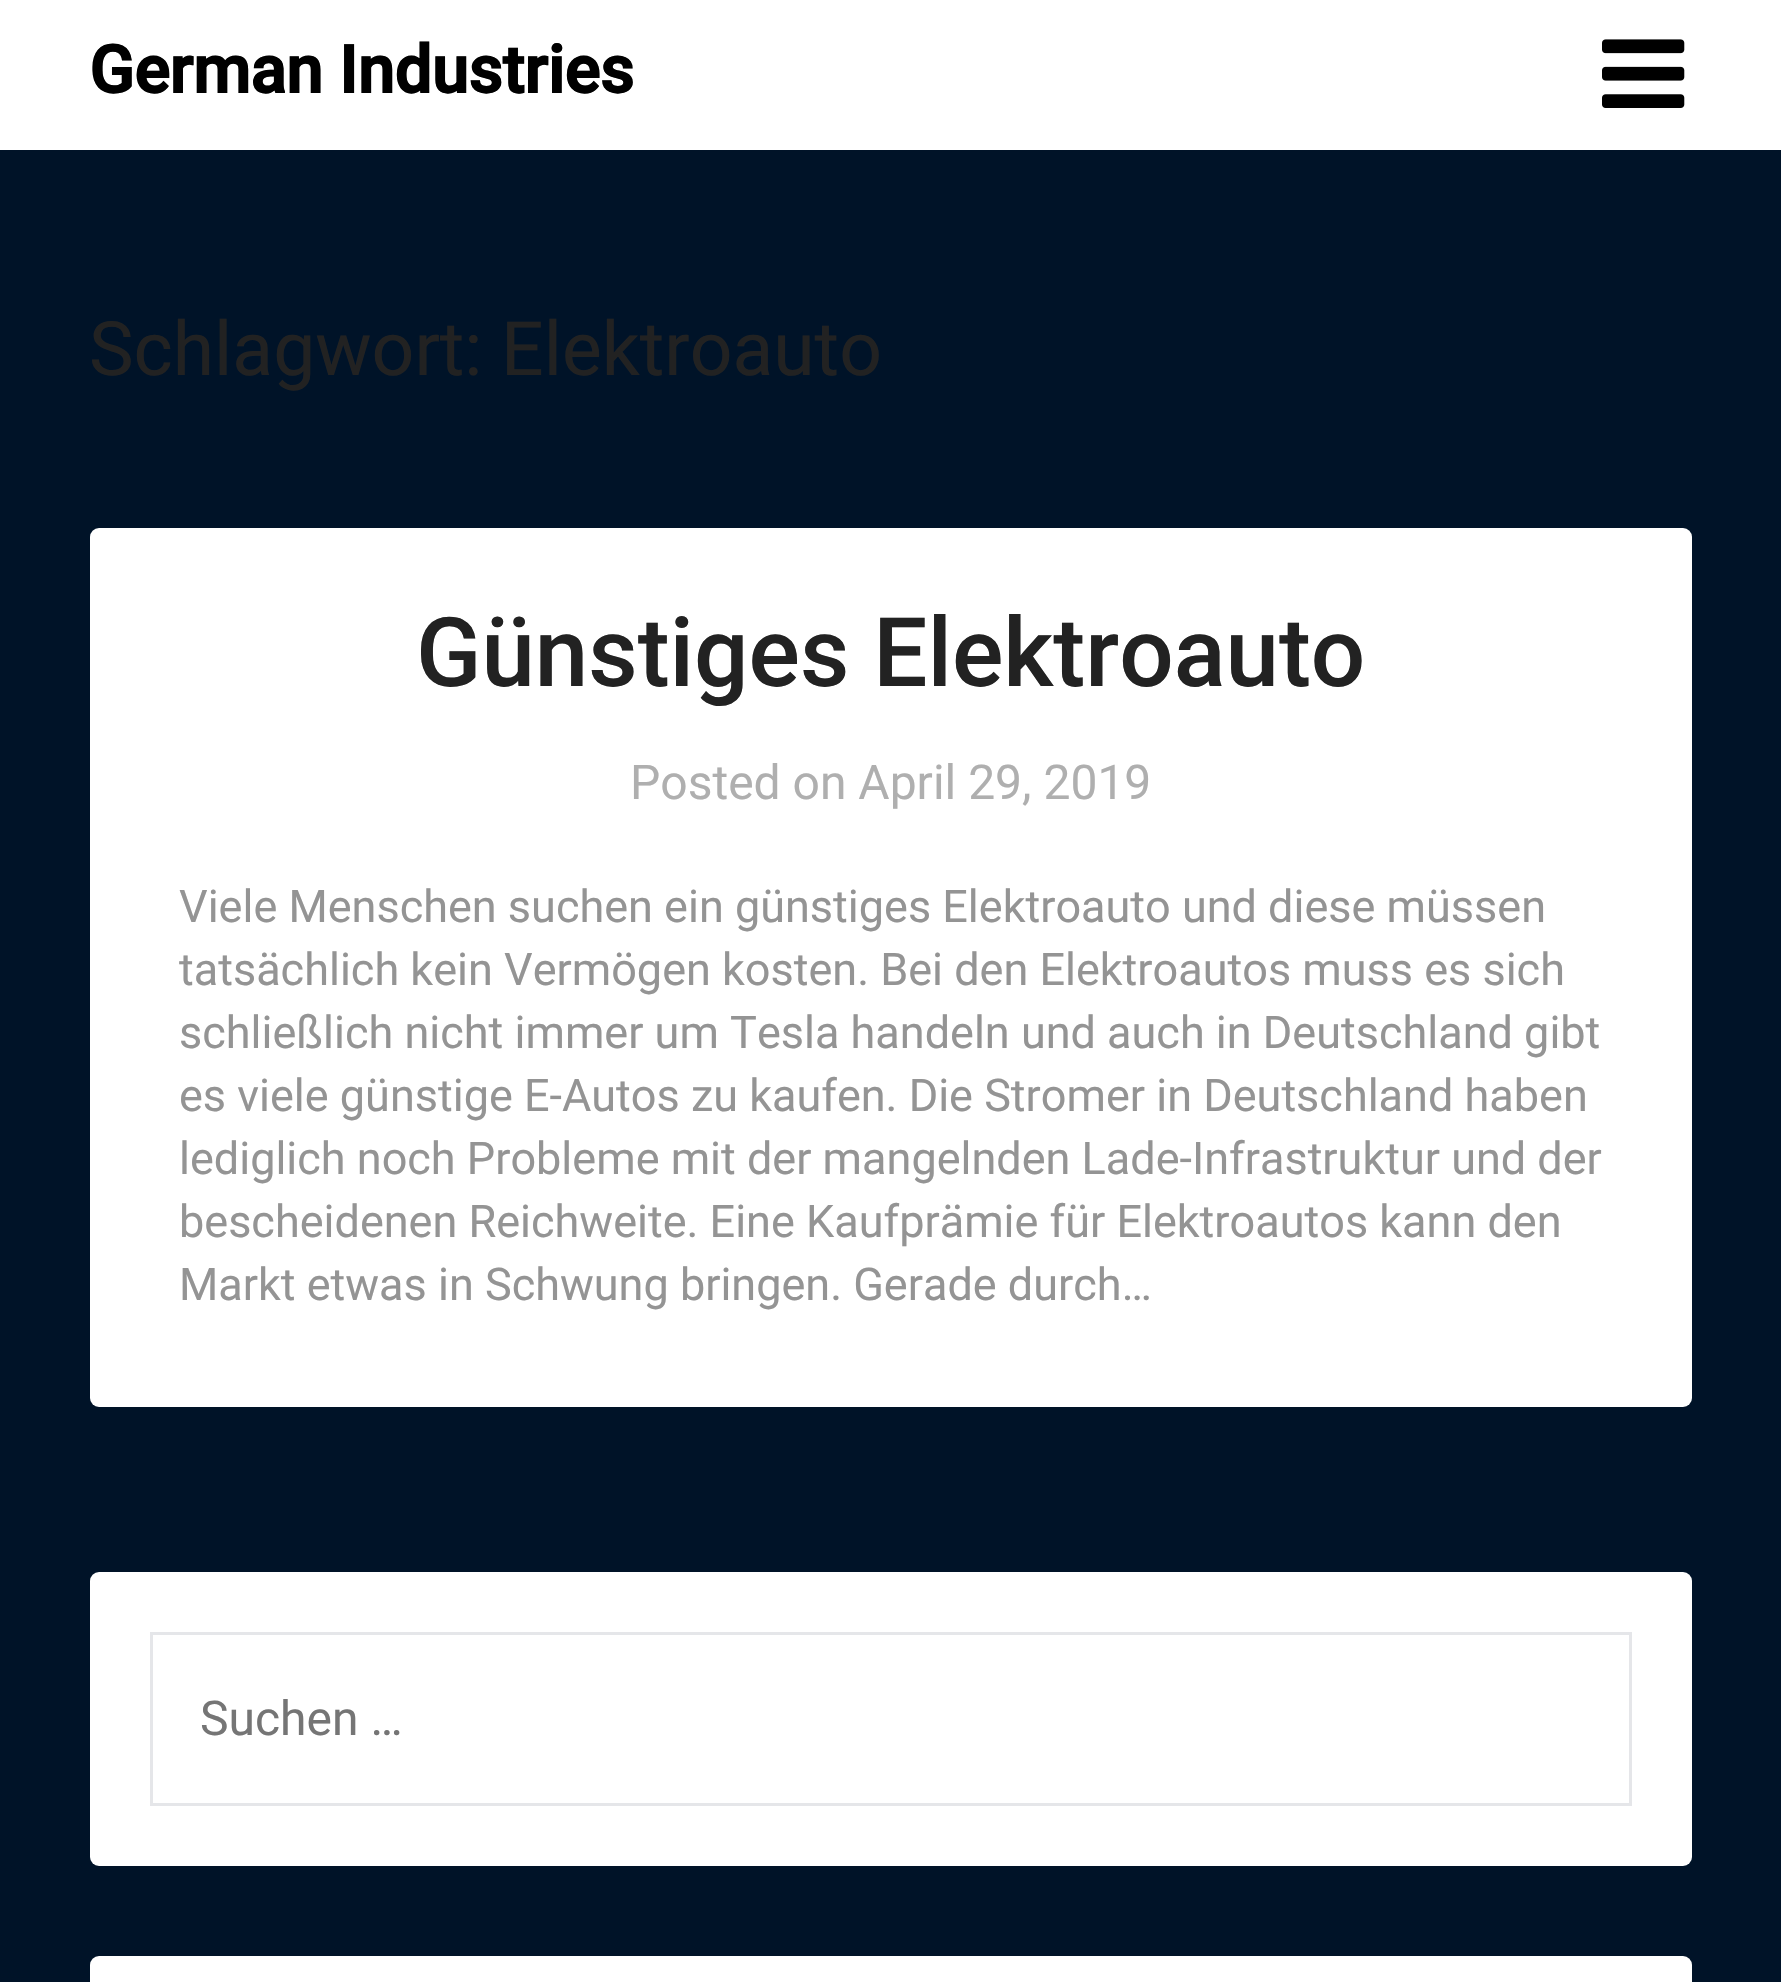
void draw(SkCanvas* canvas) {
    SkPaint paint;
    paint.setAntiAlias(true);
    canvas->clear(0xFF001328);
    paint.setColor(0xFFFFFFFF);
    canvas->drawRect(SkRect::MakeXYWH(0, 0, 1781, 150), paint);
    SkFont font1(fontMgr->matchFamilyStyle("Roboto", SkFontStyle::Bold()), 66);
    font1.setSubpixel(true);
    paint.setColor(0xFF000000);
    canvas->drawString("German Industries", 89, 93, font1, paint);
    canvas->drawImageRect(SkImages::DeferredFromEncodedData(SkData::MakeFromFileName("img1.png")), SkRect::MakeXYWH(1602, 39, 83, 69), SkSamplingOptions());
    SkFont font2(fontMgr->matchFamilyStyle("Roboto", SkFontStyle::Normal()), 75);
    font2.setSubpixel(true);
    paint.setColor(0xFF222222);
    canvas->drawString("Schlagwort: Elektroauto", 89, 375, font2, paint);
    paint.setColor(0xFFFFFFFF);
    canvas->drawRoundRect(SkRect::MakeXYWH(90, 528, 1602, 879), 9, 9, paint);
    SkFont font3(fontMgr->matchFamilyStyle("Roboto", SkFontStyle(500, SkFontStyle::kNormal_Width, SkFontStyle::kUpright_Slant)), 96);
    font3.setSubpixel(true);
    paint.setColor(0xFF222222);
    canvas->drawString("Günstiges Elektroauto", 416, 686, font3, paint);
    SkFont font4(fontMgr->matchFamilyStyle("Roboto", SkFontStyle::Normal()), 48);
    font4.setSubpixel(true);
    paint.setColor(0xFFAFAFAF);
    canvas->drawString("Posted on April 29, 2019", 630, 799, font4, paint);
    SkFont font5(fontMgr->matchFamilyStyle("Roboto", SkFontStyle::Normal()), 45);
    font5.setSubpixel(true);
    paint.setColor(0xFF949494);
    canvas->drawString("Viele Menschen suchen ein günstiges Elektroauto und diese müssen", 179, 922, font5, paint);
    canvas->drawString("tatsächlich kein Vermögen kosten. Bei den Elektroautos muss es sich", 179, 985, font5, paint);
    canvas->drawString("schließlich nicht immer um Tesla handeln und auch in Deutschland gibt", 179, 1048, font5, paint);
    canvas->drawString("es viele günstige E-Autos zu kaufen. Die Stromer in Deutschland haben", 179, 1111, font5, paint);
    canvas->drawString("lediglich noch Probleme mit der mangelnden Lade-Infrastruktur und der", 179, 1174, font5, paint);
    canvas->drawString("bescheidenen Reichweite. Eine Kaufprämie für Elektroautos kann den", 179, 1237, font5, paint);
    canvas->drawString("Markt etwas in Schwung bringen. Gerade durch…", 179, 1300, font5, paint);
    paint.setColor(0xFFFFFFFF);
    canvas->drawRoundRect(SkRect::MakeXYWH(90, 1572, 1602, 294), 9, 9, paint);
    paint.setStyle(SkPaint::kStroke_Style);
    paint.setStrokeWidth(3);
    paint.setColor(0xFFE5E6E9);
    canvas->drawRect(SkRect::MakeXYWH(151.5f, 1633.5f, 1479, 171), paint);
    paint.setStyle(SkPaint::kFill_Style);
    paint.setColor(0xFF757575);
    canvas->drawString("Suchen …", 200, 1735, font4, paint);
    paint.setColor(0xFFFFFFFF);
    canvas->drawRoundRect(SkRect::MakeXYWH(90, 1956, 1602, 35), 9, 9, paint);
}
